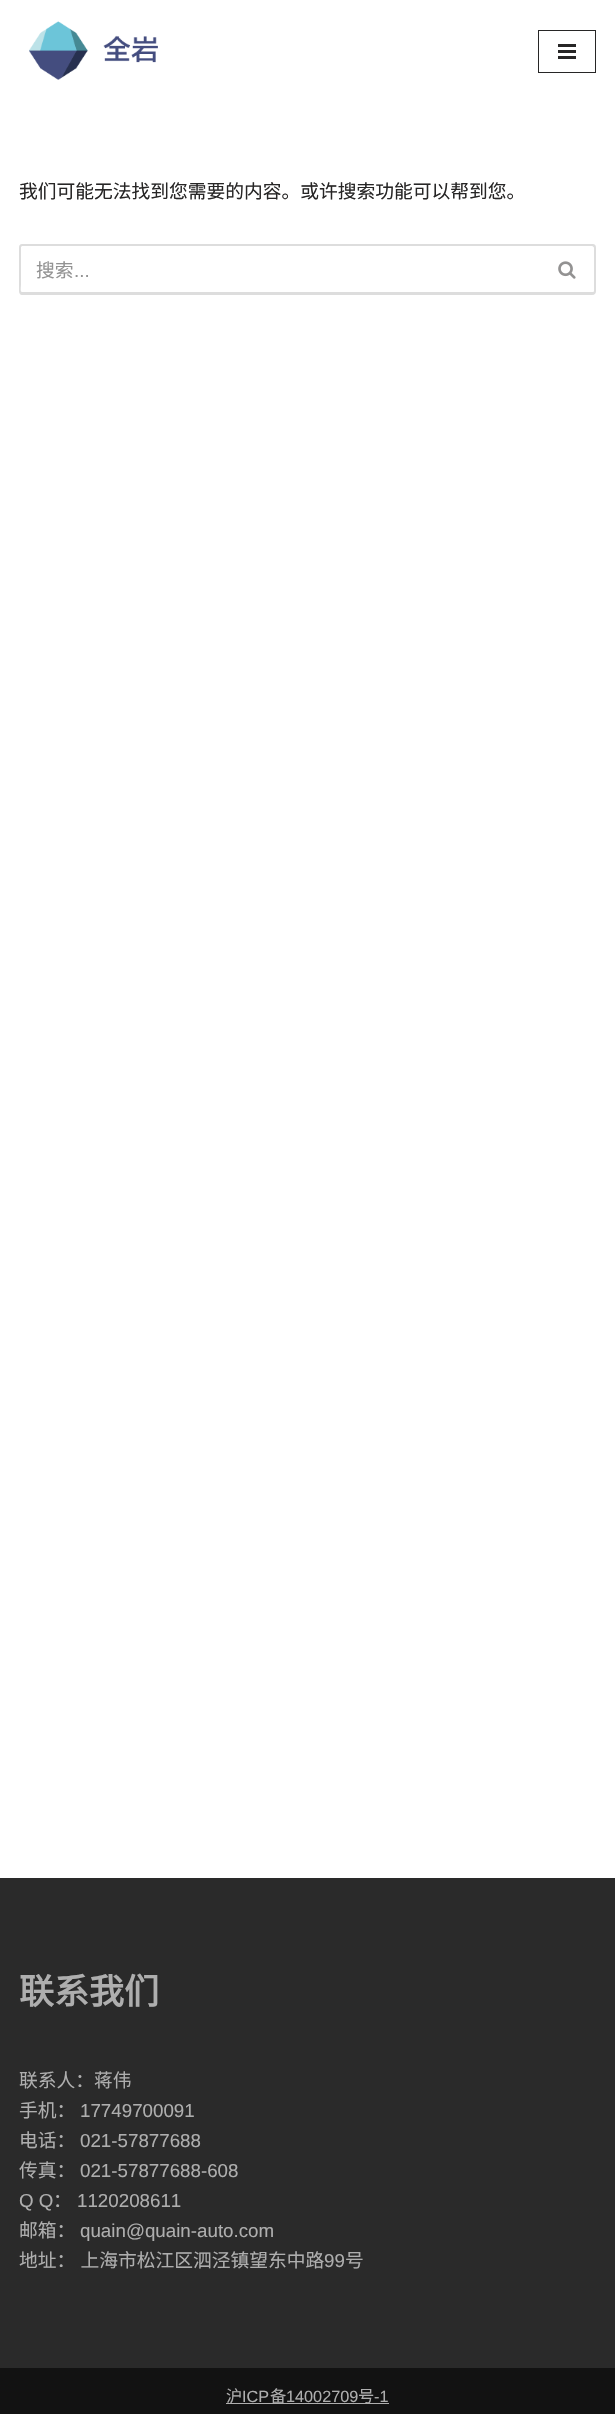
void draw(SkCanvas* canvas) {
    SkPaint paint;
    paint.setAntiAlias(true);
    auto spacedText = [&](const char* s, float x, float y, const SkFont& font, const SkPaint& ink, float letter, float word) {
        std::vector<SkGlyphID> glyphs(font.countText(s, strlen(s), SkTextEncoding::kUTF8));
        std::vector<float> xs(glyphs.size());
        font.textToGlyphs(s, strlen(s), SkTextEncoding::kUTF8, glyphs);
        font.getXPos(glyphs, xs, x);
        float extra = 0;
        for (size_t i = 0; i < glyphs.size(); i++) {
            xs[i] += extra;
            extra += letter + word * (glyphs[i] == font.unicharToGlyph(' '));
        }
        canvas->drawTextBlob(SkTextBlob::MakeFromPosHGlyphs(glyphs, xs, y, font), 0, 0, ink);
    };
    canvas->clear(0xFFFFFFFF);
    canvas->drawImageRect(SkImages::DeferredFromEncodedData(SkData::MakeFromFileName("img1.png")), SkRect::MakeXYWH(29, 21, 129, 59), SkSamplingOptions());
    paint.setStyle(SkPaint::kStroke_Style);
    paint.setStrokeWidth(1);
    paint.setColor(0xFF272626);
    canvas->drawRect(SkRect::MakeXYWH(538.5f, 30.5f, 57, 42), paint);
    paint.setStyle(SkPaint::kFill_Style);
    canvas->drawRect(SkRect::MakeXYWH(558, 44, 18, 3), paint);
    canvas->drawRect(SkRect::MakeXYWH(558, 50, 18, 3), paint);
    canvas->drawRect(SkRect::MakeXYWH(558, 56, 18, 3), paint);
    SkFont font1(fontMgr->matchFamilyStyle("Noto Sans CJK SC", SkFontStyle::Normal()), 18.75f);
    font1.setSubpixel(true);
    canvas->drawString("我们可能无法找到您需要的内容。或许搜索功能可以帮到您。", 19, 198, font1, paint);
    paint.setColor(0xFFDDDDDD);
    canvas->drawPath(SkPathBuilder(SkPathFillType::kEvenOdd).moveTo(22, 244).lineTo(540, 244).lineTo(540, 295).lineTo(22, 295).cubicTo(20, 295, 19, 293, 19, 291).lineTo(19, 248).cubicTo(19, 245, 20, 244, 22, 244).close().moveTo(22, 246).lineTo(540, 246).lineTo(540, 292).lineTo(22, 292).cubicTo(20, 292, 21, 287, 21, 284).lineTo(21, 247).close().detach(), paint);
    paint.setColor(0xFF939393);
    canvas->drawString("搜索", 36, 277, font1, paint);
    SkFont font2(fontMgr->matchFamilyStyle("Liberation Sans", SkFontStyle::Normal()), 18.75f);
    font2.setSubpixel(true);
    canvas->drawString("...", 74, 277, font2, paint);
    paint.setColor(0xFFDDDDDD);
    canvas->drawPath(SkPathBuilder(SkPathFillType::kEvenOdd).moveTo(540, 244).lineTo(592, 244).cubicTo(595, 244, 596, 245, 596, 248).lineTo(596, 291).cubicTo(596, 293, 595, 295, 592, 295).lineTo(540, 295).close().moveTo(540, 246).lineTo(592, 246).cubicTo(593, 246, 594, 247, 594, 248).lineTo(594, 291).cubicTo(594, 292, 593, 292, 592, 292).lineTo(540, 292).close().detach(), paint);
    canvas->drawImageRect(SkImages::DeferredFromEncodedData(SkData::MakeFromFileName("img2.png")), SkRect::MakeXYWH(558, 261, 18, 18), SkSamplingOptions());
    paint.setColor(0xFF2A2A2A);
    canvas->drawRect(SkRect::MakeXYWH(0, 1878, 615, 490), paint);
    SkFont font3(fontMgr->matchFamilyStyle("Noto Sans CJK SC", SkFontStyle::Bold()), 35);
    font3.setSubpixel(true);
    paint.setColor(0xFFAEAEAE);
    canvas->drawString("联系我们", 19, 2004, font3, paint);
    canvas->drawString("联系人：蒋伟", 19, 2087, font1, paint);
    canvas->drawString("手机：", 19, 2117, font1, paint);
    canvas->drawString("17749700091", 80, 2117, font2, paint);
    canvas->drawString("电话：", 19, 2147, font1, paint);
    canvas->drawString("021-57877688", 80, 2147, font2, paint);
    canvas->drawString("传真：", 19, 2177, font1, paint);
    canvas->drawString("021-57877688-608", 80, 2177, font2, paint);
    canvas->drawString("Q Q", 19, 2207, font2, paint);
    canvas->drawString("：", 53, 2207, font1, paint);
    canvas->drawString("1120208611", 77, 2207, font2, paint);
    canvas->drawString("邮箱：", 19, 2237, font1, paint);
    canvas->drawString("quain@quain-auto.com", 80, 2237, font2, paint);
    spacedText("地址： 上海市松江区泗泾镇望东中路", 19, 2267, font1, paint, 0, 1);
    canvas->drawString("99", 324, 2267, font2, paint);
    canvas->drawString("号", 345, 2267, font1, paint);
    paint.setColor(0xFF121212);
    canvas->drawRect(SkRect::MakeXYWH(0, 2368, 615, 46), paint);
    paint.setColor(0xFFAEAEAE);
    canvas->drawRect(SkRect::MakeXYWH(226, 2403, 163, 1), paint);
    SkFont font4(fontMgr->matchFamilyStyle("Noto Sans CJK SC", SkFontStyle::Normal()), 16.25f);
    font4.setSubpixel(true);
    canvas->drawString("沪", 226, 2402, font4, paint);
    SkFont font5(fontMgr->matchFamilyStyle("Liberation Sans", SkFontStyle::Normal()), 16.25f);
    font5.setSubpixel(true);
    canvas->drawString("ICP", 242, 2402, font5, paint);
    canvas->drawString("备", 270, 2402, font4, paint);
    canvas->drawString("14002709", 286, 2402, font5, paint);
    canvas->drawString("号", 358, 2402, font4, paint);
    canvas->drawString("-1", 374, 2402, font5, paint);
}
